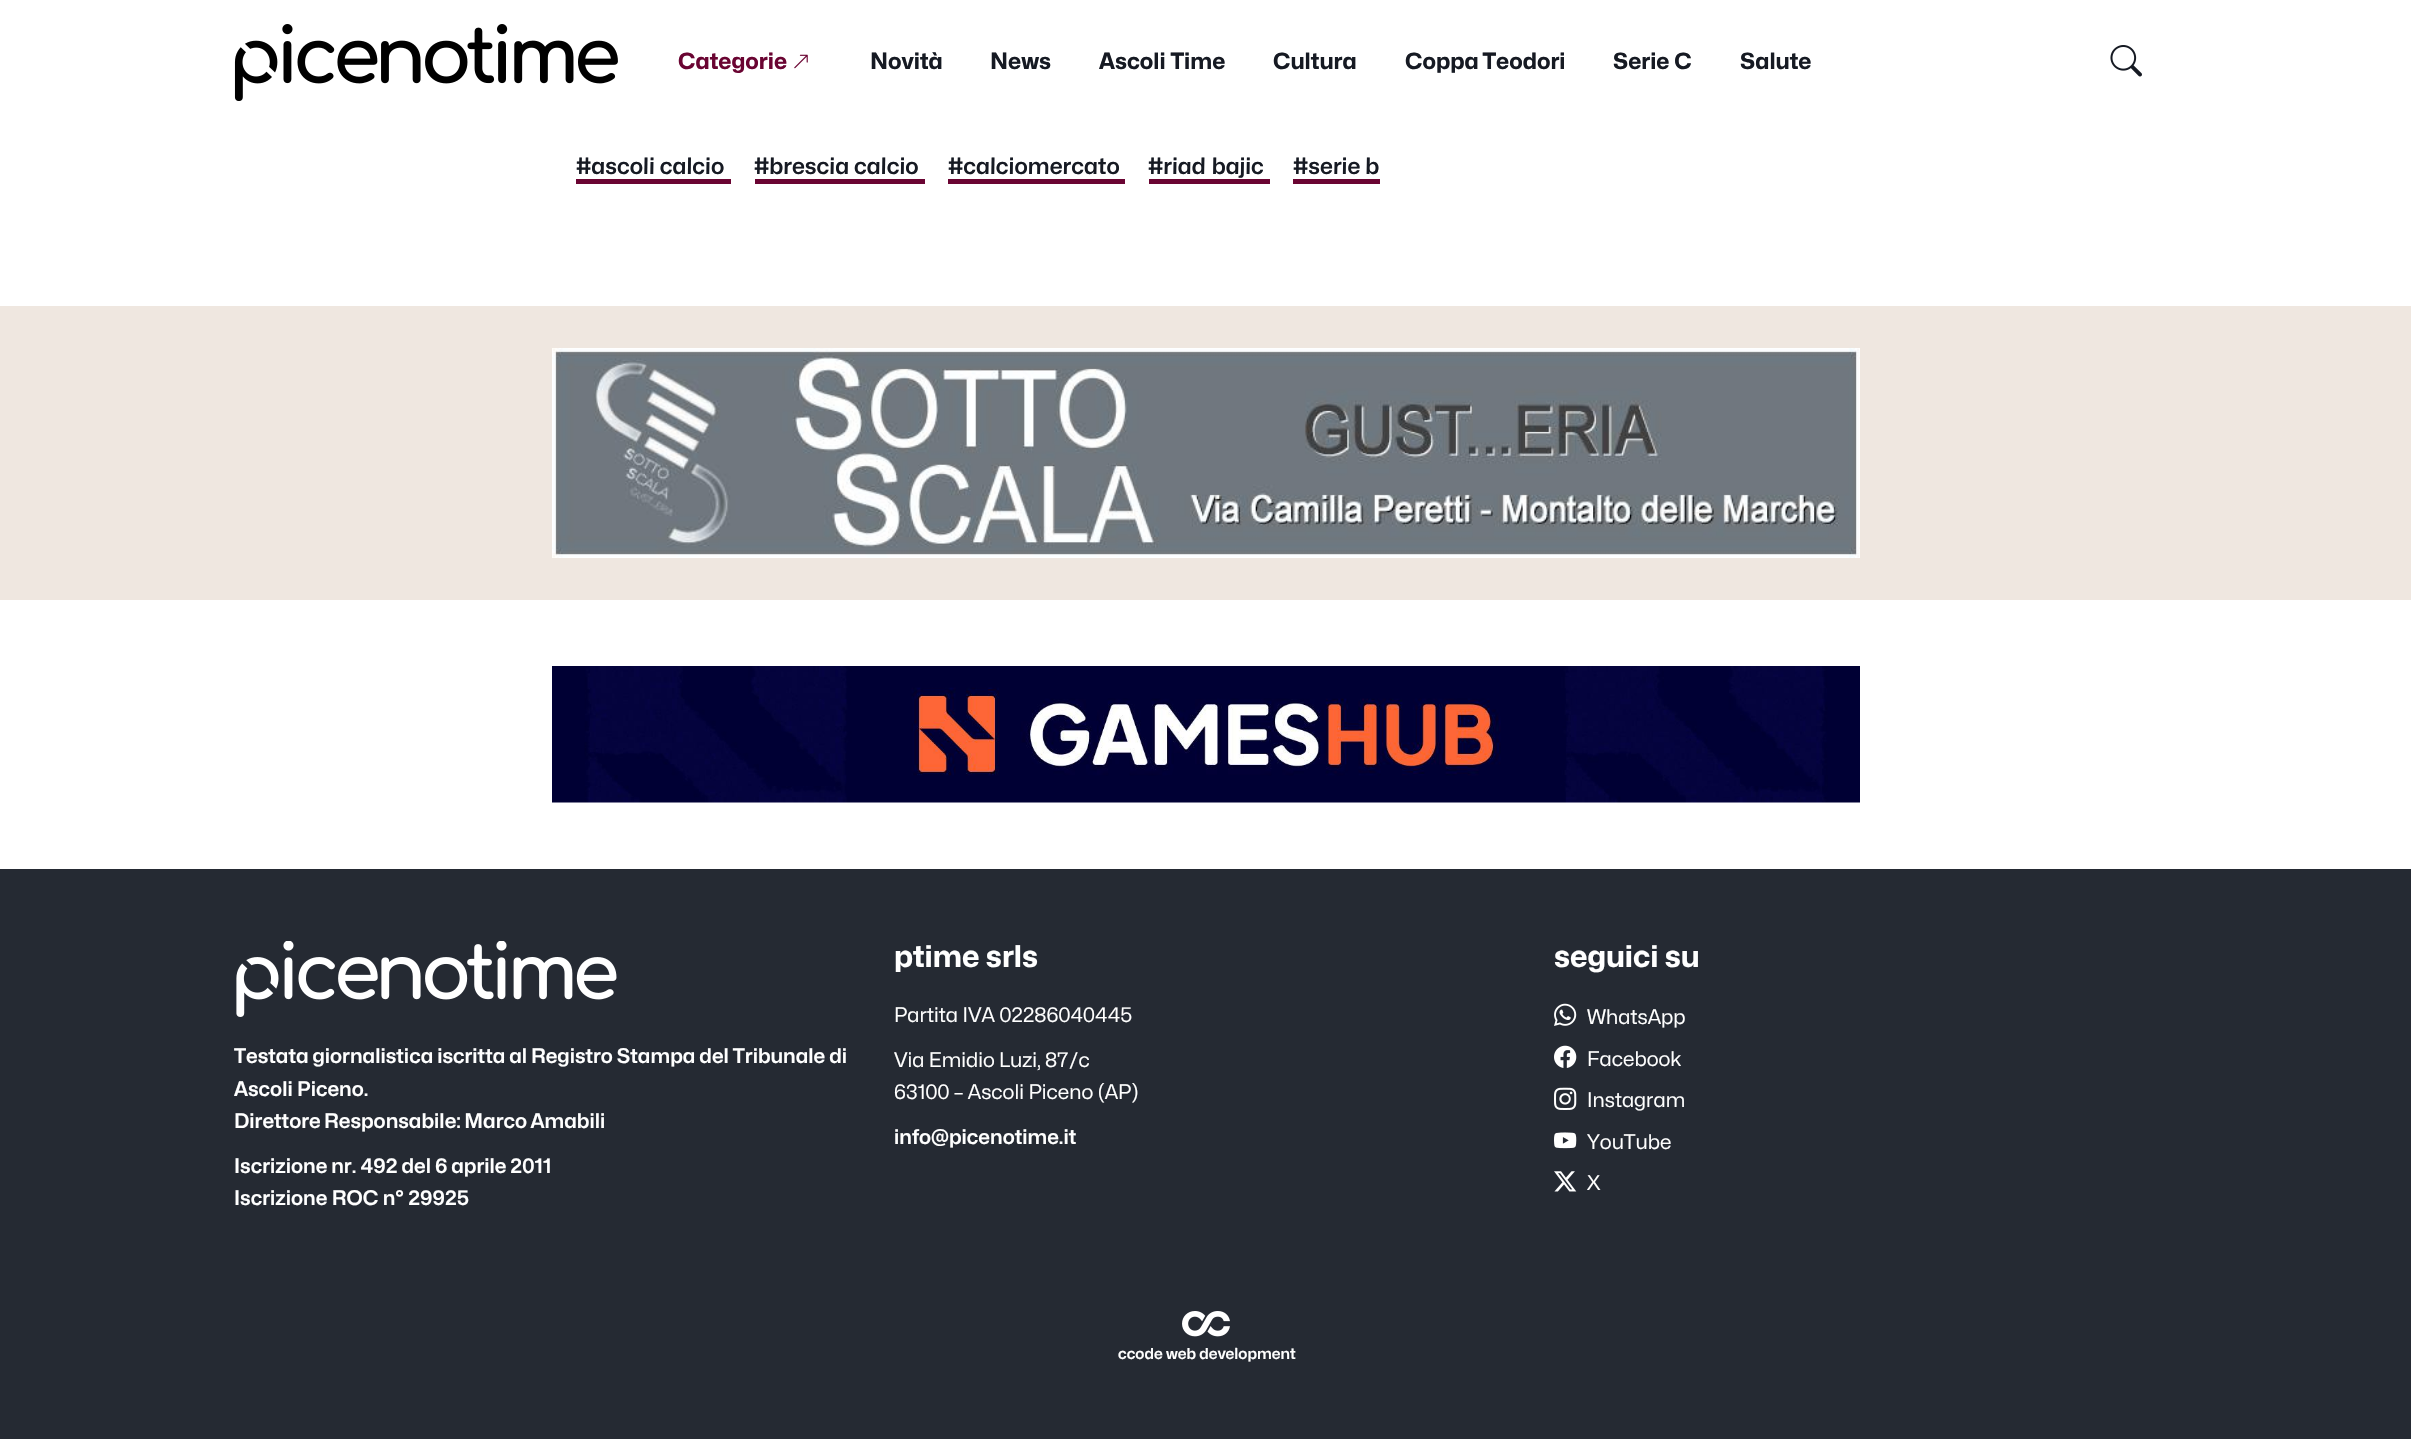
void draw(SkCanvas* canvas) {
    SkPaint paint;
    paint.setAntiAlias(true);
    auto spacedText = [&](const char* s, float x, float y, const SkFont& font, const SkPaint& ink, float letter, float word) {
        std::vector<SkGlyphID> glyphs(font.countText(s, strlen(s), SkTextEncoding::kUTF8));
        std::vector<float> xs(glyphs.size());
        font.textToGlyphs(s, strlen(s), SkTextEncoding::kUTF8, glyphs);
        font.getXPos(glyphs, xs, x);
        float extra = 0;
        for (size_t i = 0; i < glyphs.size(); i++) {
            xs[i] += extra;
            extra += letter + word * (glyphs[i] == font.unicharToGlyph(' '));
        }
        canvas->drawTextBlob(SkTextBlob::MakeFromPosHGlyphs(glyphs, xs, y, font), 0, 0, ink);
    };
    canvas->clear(0xFFFFFFFF);
    canvas->drawImageRect(SkImages::DeferredFromEncodedData(SkData::MakeFromFileName("img1.png")), SkRect::MakeXYWH(234, 24, 384, 77), SkSamplingOptions());
    SkFont font1(fontMgr->matchFamilyStyle("Mona Sans", SkFontStyle::Bold()), 22.5f);
    font1.setSubpixel(true);
    paint.setColor(0xFF6A0432);
    canvas->drawString("Categorie", 678, 69, font1, paint);
    canvas->drawImageRect(SkImages::DeferredFromEncodedData(SkData::MakeFromFileName("img2.png")), SkRect::MakeXYWH(794, 54, 14, 15), SkSamplingOptions());
    paint.setColor(0xFF161A23);
    canvas->drawString("Novità", 870, 69, font1, paint);
    canvas->drawString("News", 990, 69, font1, paint);
    canvas->drawString("Ascoli Time", 1099, 69, font1, paint);
    canvas->drawString("Cultura", 1273, 69, font1, paint);
    spacedText("Coppa Teodori", 1405, 69, font1, paint, 0, -1);
    canvas->drawString("Serie C", 1613, 69, font1, paint);
    canvas->drawString("Salute", 1740, 69, font1, paint);
    canvas->drawImageRect(SkImages::DeferredFromEncodedData(SkData::MakeFromFileName("img3.png")), SkRect::MakeXYWH(2110, 45, 32, 32), SkSamplingOptions());
    SkFont font2(fontMgr->matchFamilyStyle("Mona Sans", SkFontStyle(600, SkFontStyle::kNormal_Width, SkFontStyle::kItalic_Slant)), 22.5f);
    font2.setSubpixel(true);
    canvas->drawString("#ascoli calcio", 576, 174, font2, paint);
    paint.setColor(0xFF6A0432);
    canvas->drawRect(SkRect::MakeXYWH(576, 179, 155, 5), paint);
    paint.setColor(0xFF161A23);
    canvas->drawString("#brescia calcio", 754, 174, font2, paint);
    paint.setColor(0xFF6A0432);
    canvas->drawRect(SkRect::MakeXYWH(755, 179, 170, 5), paint);
    paint.setColor(0xFF161A23);
    canvas->drawString("#calciomercato", 948, 174, font2, paint);
    paint.setColor(0xFF6A0432);
    canvas->drawRect(SkRect::MakeXYWH(948, 179, 177, 5), paint);
    paint.setColor(0xFF161A23);
    spacedText("#riad bajic", 1148, 174, font2, paint, 0, 1);
    paint.setColor(0xFF6A0432);
    canvas->drawRect(SkRect::MakeXYWH(1149, 179, 121, 5), paint);
    paint.setColor(0xFF161A23);
    canvas->drawString("#serie b", 1293, 174, font2, paint);
    paint.setColor(0xFF6A0432);
    canvas->drawRect(SkRect::MakeXYWH(1293, 179, 87, 5), paint);
    paint.setColor(0xFFEFE7E0);
    canvas->drawRect(SkRect::MakeXYWH(0, 306, 2411, 294), paint);
    canvas->drawImageRect(SkImages::DeferredFromEncodedData(SkData::MakeFromFileName("img4.png")), SkRect::MakeXYWH(552, 348, 1308, 210), SkSamplingOptions());
    canvas->drawImageRect(SkImages::DeferredFromEncodedData(SkData::MakeFromFileName("img5.png")), SkRect::MakeXYWH(552, 666, 1308, 137), SkSamplingOptions());
    paint.setColor(0xFF252A33);
    canvas->drawRect(SkRect::MakeXYWH(0, 869, 2411, 570), paint);
    canvas->drawImageRect(SkImages::DeferredFromEncodedData(SkData::MakeFromFileName("img6.png")), SkRect::MakeXYWH(236, 941, 381, 76), SkSamplingOptions());
    SkFont font3(fontMgr->matchFamilyStyle("Mona Sans", SkFontStyle(600, SkFontStyle::kNormal_Width, SkFontStyle::kUpright_Slant)), 20.25f);
    font3.setSubpixel(true);
    paint.setColor(0xFFFFFFFF);
    spacedText("Testata giornalistica iscritta al Registro Stampa del Tribunale di", 234, 1063, font3, paint, 0, -0.5f);
    canvas->drawString("Ascoli Piceno.", 234, 1096, font3, paint);
    spacedText("Direttore Responsabile: Marco Amabili", 234, 1128, font3, paint, 0, -1);
    spacedText("Iscrizione nr. 492 del 6 aprile 2011", 234, 1173, font3, paint, 0, -0.5f);
    canvas->drawString("Iscrizione ROC n° 29925", 234, 1205, font3, paint);
    SkFont font4(fontMgr->matchFamilyStyle("Mona Sans", SkFontStyle::Bold()), 30);
    font4.setSubpixel(true);
    canvas->drawString("ptime srls", 894, 967, font4, paint);
    SkFont font5(fontMgr->matchFamilyStyle("Mona Sans", SkFontStyle::Normal()), 20.25f);
    font5.setSubpixel(true);
    canvas->drawString("Partita IVA 02286040445", 894, 1022, font5, paint);
    spacedText("Via Emidio Luzi, 87/c", 894, 1067, font5, paint, 0, -0.5f);
    canvas->drawString("63100 – Ascoli Piceno (AP)", 894, 1099, font5, paint);
    canvas->drawString("info@picenotime.it", 894, 1144, font3, paint);
    canvas->drawString("seguici su", 1554, 967, font4, paint);
    canvas->drawImageRect(SkImages::DeferredFromEncodedData(SkData::MakeFromFileName("img7.png")), SkRect::MakeXYWH(1554, 1003, 23, 23), SkSamplingOptions());
    canvas->drawString("WhatsApp", 1587, 1024, font5, paint);
    canvas->drawImageRect(SkImages::DeferredFromEncodedData(SkData::MakeFromFileName("img8.png")), SkRect::MakeXYWH(1554, 1045, 23, 23), SkSamplingOptions());
    canvas->drawString("Facebook", 1587, 1066, font5, paint);
    canvas->drawImageRect(SkImages::DeferredFromEncodedData(SkData::MakeFromFileName("img9.png")), SkRect::MakeXYWH(1554, 1087, 23, 23), SkSamplingOptions());
    canvas->drawString("Instagram", 1587, 1107, font5, paint);
    canvas->drawImageRect(SkImages::DeferredFromEncodedData(SkData::MakeFromFileName("img10.png")), SkRect::MakeXYWH(1554, 1132, 23, 17), SkSamplingOptions());
    canvas->drawString("YouTube", 1587, 1149, font5, paint);
    canvas->drawImageRect(SkImages::DeferredFromEncodedData(SkData::MakeFromFileName("img11.png")), SkRect::MakeXYWH(1554, 1171, 23, 21), SkSamplingOptions());
    canvas->drawString("X", 1587, 1190, font5, paint);
    canvas->drawImageRect(SkImages::DeferredFromEncodedData(SkData::MakeFromFileName("img12.png")), SkRect::MakeXYWH(1182, 1311, 48, 26), SkSamplingOptions());
    SkFont font6(fontMgr->matchFamilyStyle("Mona Sans", SkFontStyle(600, SkFontStyle::kNormal_Width, SkFontStyle::kUpright_Slant)), 15.25f);
    font6.setSubpixel(true);
    canvas->drawString("ccode web development", 1118, 1359, font6, paint);
}
